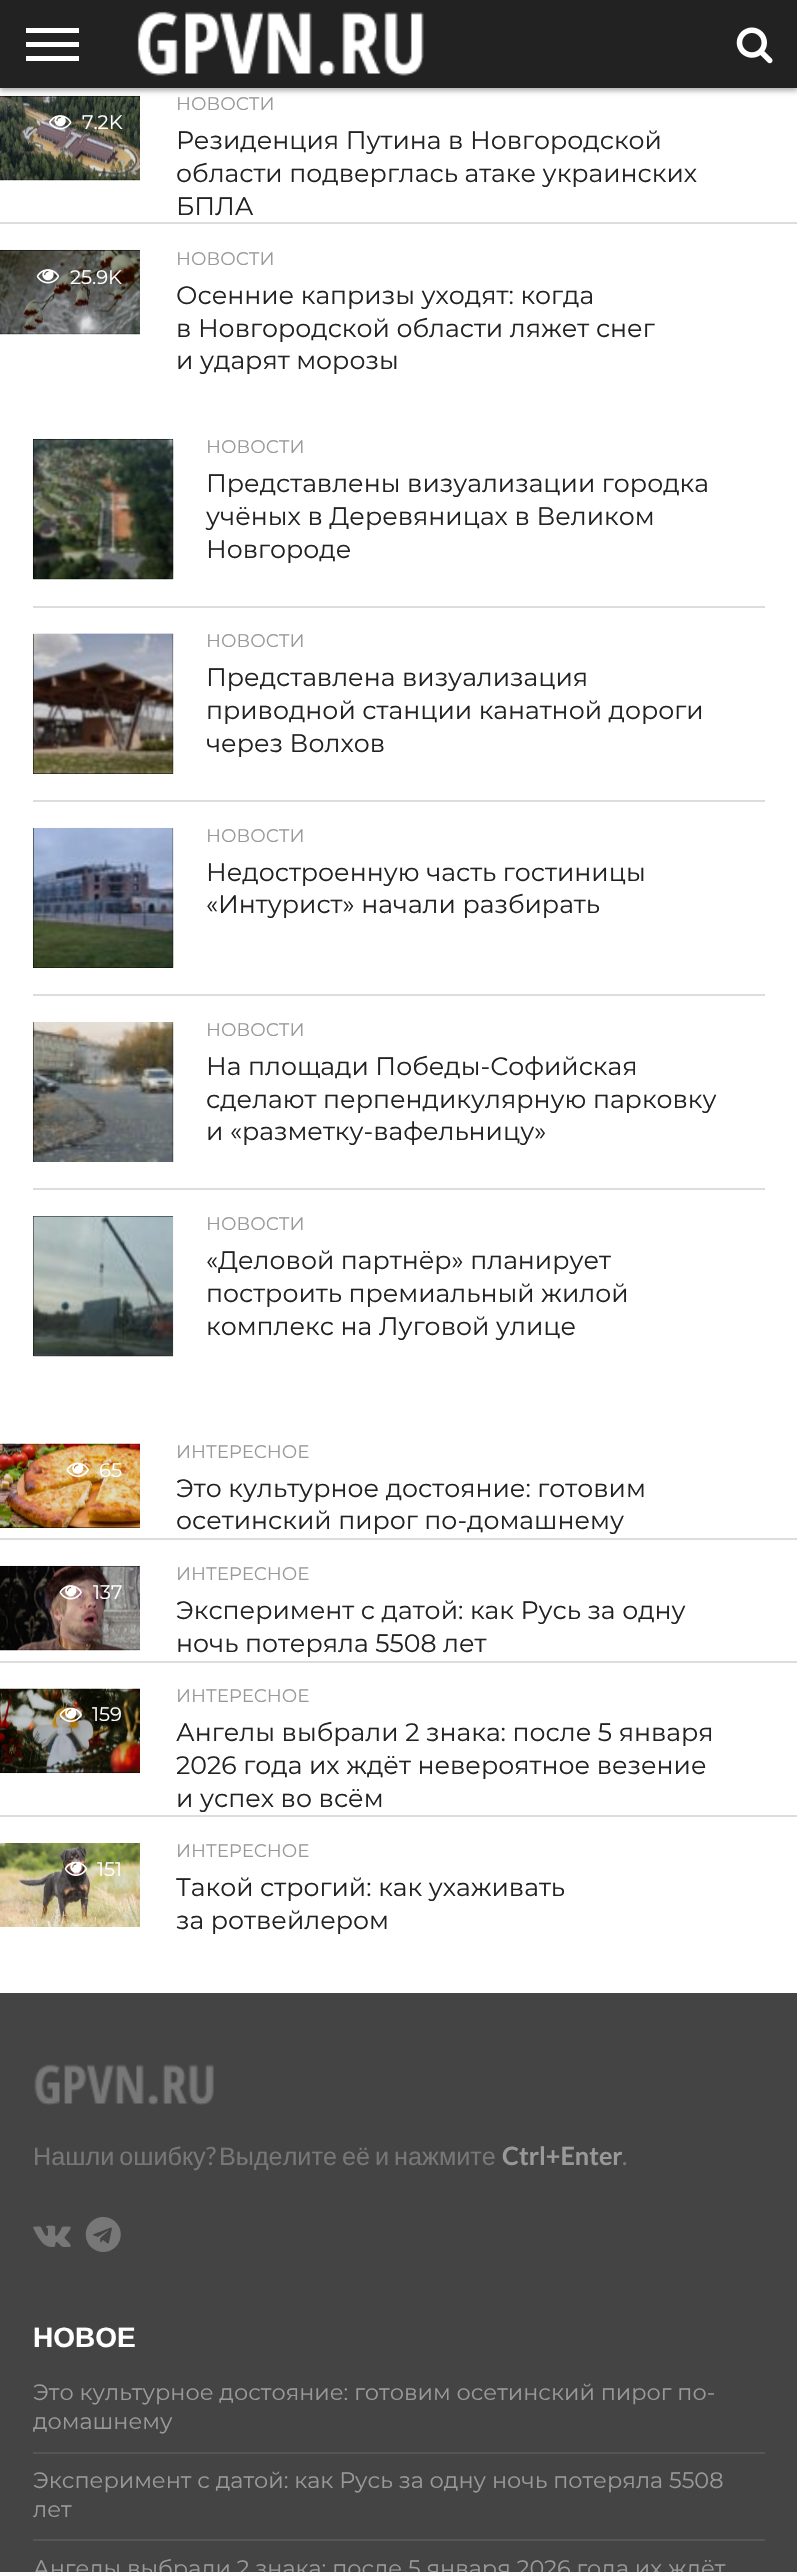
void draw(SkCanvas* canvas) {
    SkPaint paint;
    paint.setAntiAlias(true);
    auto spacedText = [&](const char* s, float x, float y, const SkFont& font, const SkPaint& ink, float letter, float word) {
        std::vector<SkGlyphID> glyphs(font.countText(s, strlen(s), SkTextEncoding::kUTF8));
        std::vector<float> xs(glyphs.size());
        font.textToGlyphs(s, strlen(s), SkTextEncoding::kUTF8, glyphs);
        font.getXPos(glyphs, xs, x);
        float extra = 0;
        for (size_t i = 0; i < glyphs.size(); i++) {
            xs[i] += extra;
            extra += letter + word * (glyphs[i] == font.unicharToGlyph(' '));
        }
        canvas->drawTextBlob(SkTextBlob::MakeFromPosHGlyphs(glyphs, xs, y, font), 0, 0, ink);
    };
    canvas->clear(0xFFFFFFFF);
    paint.setColor(0xFF000000);
    canvas->drawRect(SkRect::MakeXYWH(0, 96, 140, 84), paint);
    canvas->drawImageRect(SkImages::DeferredFromEncodedData(SkData::MakeFromFileName("img3.png")), SkRect::MakeXYWH(0, 95, 140, 86), SkSamplingOptions());
    paint.setColor(0x4D000000);
    paint.setMaskFilter(SkMaskFilter::MakeBlur(kNormal_SkBlurStyle, 2.5f));
    canvas->drawRect(SkRect::MakeXYWH(0, 4, 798, 87), paint);
    paint.setMaskFilter(nullptr);
    paint.setColor(0xFF222222);
    canvas->drawRect(SkRect::MakeXYWH(0, 0, 797, 88), paint);
    paint.setColor(0xFFFFFFFF);
    canvas->drawRect(SkRect::MakeXYWH(26, 28, 53, 5), paint);
    canvas->drawRect(SkRect::MakeXYWH(26, 42, 53, 5), paint);
    canvas->drawRect(SkRect::MakeXYWH(26, 56, 53, 5), paint);
    canvas->drawImageRect(SkImages::DeferredFromEncodedData(SkData::MakeFromFileName("img1.png")), SkRect::MakeXYWH(137, 11, 287, 65), SkSamplingOptions());
    canvas->drawImageRect(SkImages::DeferredFromEncodedData(SkData::MakeFromFileName("img2.png")), SkRect::MakeXYWH(736, 27, 37, 37), SkSamplingOptions());
    canvas->drawImageRect(SkImages::DeferredFromEncodedData(SkData::MakeFromFileName("img4.png")), SkRect::MakeXYWH(49, 115, 23, 15), SkSamplingOptions());
    SkFont font1(fontMgr->matchFamilyStyle("Montserrat", SkFontStyle::Normal()), 19.5f);
    font1.setSubpixel(true);
    canvas->drawString("7.2K", 82, 129, font1, paint);
    SkFont font2(fontMgr->matchFamilyStyle("Montserrat", SkFontStyle::Normal()), 18.25f);
    font2.setSubpixel(true);
    paint.setColor(0xFF999999);
    canvas->drawString("НОВОСТИ", 176, 110, font2, paint);
    SkFont font3(fontMgr->matchFamilyStyle("Montserrat", SkFontStyle::Normal()), 25.2f);
    font3.setSubpixel(true);
    paint.setColor(0xFF222222);
    canvas->drawString("Резиденция Путина в Новгородской", 176, 149, font3, paint);
    canvas->drawString("области подверглась атаке украинских", 176, 182, font3, paint);
    canvas->drawString("БПЛА", 176, 215, font3, paint);
    paint.setColor(0xFFDDDDDD);
    canvas->drawRect(SkRect::MakeXYWH(0, 222, 797, 2), paint);
    paint.setColor(0xFF000000);
    canvas->drawRect(SkRect::MakeXYWH(0, 250, 140, 84), paint);
    canvas->drawImageRect(SkImages::DeferredFromEncodedData(SkData::MakeFromFileName("img5.png")), SkRect::MakeXYWH(0, 249, 140, 86), SkSamplingOptions());
    canvas->drawImageRect(SkImages::DeferredFromEncodedData(SkData::MakeFromFileName("img6.png")), SkRect::MakeXYWH(36, 269, 24, 15), SkSamplingOptions());
    paint.setColor(0xFFFFFFFF);
    canvas->drawString("25.9K", 70, 284, font1, paint);
    paint.setColor(0xFF999999);
    canvas->drawString("НОВОСТИ", 176, 265, font2, paint);
    paint.setColor(0xFF222222);
    canvas->drawString("Осенние капризы уходят: когда", 176, 304, font3, paint);
    canvas->drawString("в Новгородской области ляжет снег", 176, 337, font3, paint);
    canvas->drawString("и ударят морозы", 176, 369, font3, paint);
    paint.setColor(0xFF000000);
    canvas->drawRect(SkRect::MakeXYWH(33, 439, 140, 140), paint);
    canvas->drawImageRect(SkImages::DeferredFromEncodedData(SkData::MakeFromFileName("img7.png")), SkRect::MakeXYWH(32, 438, 142, 142), SkSamplingOptions());
    paint.setColor(0xFF999999);
    canvas->drawString("НОВОСТИ", 206, 453, font2, paint);
    paint.setColor(0xFF222222);
    canvas->drawString("Представлены визуализации городка", 206, 492, font3, paint);
    canvas->drawString("учёных в Деревяницах в Великом", 206, 525, font3, paint);
    canvas->drawString("Новгороде", 206, 558, font3, paint);
    paint.setColor(0xFFDDDDDD);
    canvas->drawRect(SkRect::MakeXYWH(33, 606, 732, 2), paint);
    paint.setColor(0xFF000000);
    canvas->drawRect(SkRect::MakeXYWH(33, 634, 140, 140), paint);
    canvas->drawImageRect(SkImages::DeferredFromEncodedData(SkData::MakeFromFileName("img8.png")), SkRect::MakeXYWH(32, 633, 142, 141), SkSamplingOptions());
    paint.setColor(0xFF999999);
    canvas->drawString("НОВОСТИ", 206, 647, font2, paint);
    paint.setColor(0xFF222222);
    canvas->drawString("Представлена визуализация", 206, 686, font3, paint);
    canvas->drawString("приводной станции канатной дороги", 206, 719, font3, paint);
    canvas->drawString("через Волхов", 206, 752, font3, paint);
    paint.setColor(0xFFDDDDDD);
    canvas->drawRect(SkRect::MakeXYWH(33, 800, 732, 2), paint);
    paint.setColor(0xFF000000);
    canvas->drawRect(SkRect::MakeXYWH(33, 828, 140, 140), paint);
    canvas->drawImageRect(SkImages::DeferredFromEncodedData(SkData::MakeFromFileName("img9.png")), SkRect::MakeXYWH(32, 827, 142, 141), SkSamplingOptions());
    paint.setColor(0xFF999999);
    canvas->drawString("НОВОСТИ", 206, 842, font2, paint);
    paint.setColor(0xFF222222);
    canvas->drawString("Недостроенную часть гостиницы", 206, 881, font3, paint);
    canvas->drawString("«Интурист» начали разбирать", 206, 913, font3, paint);
    paint.setColor(0xFFDDDDDD);
    canvas->drawRect(SkRect::MakeXYWH(33, 994, 732, 2), paint);
    paint.setColor(0xFF000000);
    canvas->drawRect(SkRect::MakeXYWH(33, 1022, 140, 140), paint);
    canvas->drawImageRect(SkImages::DeferredFromEncodedData(SkData::MakeFromFileName("img10.png")), SkRect::MakeXYWH(32, 1022, 142, 140), SkSamplingOptions());
    paint.setColor(0xFF999999);
    canvas->drawString("НОВОСТИ", 206, 1036, font2, paint);
    paint.setColor(0xFF222222);
    canvas->drawString("На площади Победы-Софийская", 206, 1075, font3, paint);
    canvas->drawString("сделают перпендикулярную парковку", 206, 1108, font3, paint);
    canvas->drawString("и «разметку-вафельницу»", 206, 1140, font3, paint);
    paint.setColor(0xFFDDDDDD);
    canvas->drawRect(SkRect::MakeXYWH(33, 1188, 732, 2), paint);
    paint.setColor(0xFF000000);
    canvas->drawRect(SkRect::MakeXYWH(33, 1216, 140, 140), paint);
    canvas->drawImageRect(SkImages::DeferredFromEncodedData(SkData::MakeFromFileName("img11.png")), SkRect::MakeXYWH(33, 1216, 141, 141), SkSamplingOptions());
    paint.setColor(0xFF999999);
    canvas->drawString("НОВОСТИ", 206, 1230, font2, paint);
    paint.setColor(0xFF222222);
    canvas->drawString("«Деловой партнёр» планирует", 206, 1269, font3, paint);
    canvas->drawString("построить премиальный жилой", 206, 1302, font3, paint);
    canvas->drawString("комплекс на Луговой улице", 206, 1335, font3, paint);
    paint.setColor(0xFF000000);
    canvas->drawRect(SkRect::MakeXYWH(0, 1444, 140, 84), paint);
    canvas->drawImageRect(SkImages::DeferredFromEncodedData(SkData::MakeFromFileName("img12.png")), SkRect::MakeXYWH(0, 1443, 140, 86), SkSamplingOptions());
    canvas->drawImageRect(SkImages::DeferredFromEncodedData(SkData::MakeFromFileName("img13.png")), SkRect::MakeXYWH(66, 1462, 23, 15), SkSamplingOptions());
    paint.setColor(0xFFFFFFFF);
    canvas->drawString("65", 99, 1477, font1, paint);
    paint.setColor(0xFF999999);
    canvas->drawString("ИНТЕРЕСНОЕ", 176, 1458, font2, paint);
    paint.setColor(0xFF222222);
    canvas->drawString("Это культурное достояние: готовим", 176, 1497, font3, paint);
    canvas->drawString("осетинский пирог по-домашнему", 176, 1529, font3, paint);
    paint.setColor(0xFFDDDDDD);
    canvas->drawRect(SkRect::MakeXYWH(0, 1538, 797, 2), paint);
    paint.setColor(0xFF000000);
    canvas->drawRect(SkRect::MakeXYWH(0, 1566, 140, 84), paint);
    canvas->drawImageRect(SkImages::DeferredFromEncodedData(SkData::MakeFromFileName("img14.png")), SkRect::MakeXYWH(0, 1565, 140, 86), SkSamplingOptions());
    canvas->drawImageRect(SkImages::DeferredFromEncodedData(SkData::MakeFromFileName("img15.png")), SkRect::MakeXYWH(59, 1585, 23, 15), SkSamplingOptions());
    paint.setColor(0xFFFFFFFF);
    canvas->drawString("137", 93, 1599, font1, paint);
    paint.setColor(0xFF999999);
    canvas->drawString("ИНТЕРЕСНОЕ", 176, 1580, font2, paint);
    paint.setColor(0xFF222222);
    canvas->drawString("Эксперимент с датой: как Русь за одну", 176, 1619, font3, paint);
    canvas->drawString("ночь потеряла 5508 лет", 176, 1652, font3, paint);
    paint.setColor(0xFFDDDDDD);
    canvas->drawRect(SkRect::MakeXYWH(0, 1661, 797, 2), paint);
    paint.setColor(0xFF000000);
    canvas->drawRect(SkRect::MakeXYWH(0, 1689, 140, 84), paint);
    canvas->drawImageRect(SkImages::DeferredFromEncodedData(SkData::MakeFromFileName("img16.png")), SkRect::MakeXYWH(0, 1688, 140, 86), SkSamplingOptions());
    canvas->drawImageRect(SkImages::DeferredFromEncodedData(SkData::MakeFromFileName("img17.png")), SkRect::MakeXYWH(59, 1707, 23, 15), SkSamplingOptions());
    paint.setColor(0xFFFFFFFF);
    canvas->drawString("159", 92, 1721, font1, paint);
    paint.setColor(0xFF999999);
    canvas->drawString("ИНТЕРЕСНОЕ", 176, 1702, font2, paint);
    paint.setColor(0xFF222222);
    canvas->drawString("Ангелы выбрали 2 знака: после 5 января", 176, 1741, font3, paint);
    canvas->drawString("2026 года их ждёт невероятное везение", 176, 1774, font3, paint);
    canvas->drawString("и успех во всём", 176, 1807, font3, paint);
    paint.setColor(0xFFDDDDDD);
    canvas->drawRect(SkRect::MakeXYWH(0, 1815, 797, 2), paint);
    canvas->drawImageRect(SkImages::DeferredFromEncodedData(SkData::MakeFromFileName("img18.png")), SkRect::MakeXYWH(0, 1843, 140, 84), SkSamplingOptions());
    canvas->drawImageRect(SkImages::DeferredFromEncodedData(SkData::MakeFromFileName("img19.png")), SkRect::MakeXYWH(64, 1861, 24, 15), SkSamplingOptions());
    paint.setColor(0xFFFFFFFF);
    canvas->drawString("151", 97, 1876, font1, paint);
    paint.setColor(0xFF999999);
    canvas->drawString("ИНТЕРЕСНОЕ", 176, 1857, font2, paint);
    paint.setColor(0xFF222222);
    canvas->drawString("Такой строгий: как ухаживать", 176, 1896, font3, paint);
    canvas->drawString("за ротвейлером", 176, 1929, font3, paint);
    paint.setColor(0xFF444444);
    canvas->drawRect(SkRect::MakeXYWH(0, 1993, 797, 579), paint);
    canvas->drawImageRect(SkImages::DeferredFromEncodedData(SkData::MakeFromFileName("img20.png")), SkRect::MakeXYWH(34, 2064, 180, 41), SkSamplingOptions());
    SkFont font4(fontMgr->matchFamilyStyle("Liberation Sans", SkFontStyle::Normal()), 25.2f);
    font4.setSubpixel(true);
    paint.setColor(0xFF777777);
    spacedText("Нашли ошибку", 33, 2165, font4, paint, 0, -2);
    SkFont font5(fontMgr->matchFamilyStyle("Lato", SkFontStyle::Normal()), 25.2f);
    font5.setSubpixel(true);
    canvas->drawString("?", 206, 2165, font5, paint);
    spacedText("Выделите её и нажмите", 219, 2165, font4, paint, 0, -2);
    SkFont font6(fontMgr->matchFamilyStyle("Lato", SkFontStyle::Bold()), 25.2f);
    font6.setSubpixel(true);
    paint.setColor(0xFF999999);
    canvas->drawString("Ctrl+Enter", 502, 2165, font6, paint);
    paint.setColor(0xFF777777);
    canvas->drawString(".", 622, 2165, font5, paint);
    canvas->drawImageRect(SkImages::DeferredFromEncodedData(SkData::MakeFromFileName("img21.png")), SkRect::MakeXYWH(33, 2225, 38, 22), SkSamplingOptions());
    canvas->drawImageRect(SkImages::DeferredFromEncodedData(SkData::MakeFromFileName("img22.png")), SkRect::MakeXYWH(85, 2217, 36, 35), SkSamplingOptions());
    SkFont font7(fontMgr->matchFamilyStyle("Liberation Sans", SkFontStyle::Bold()), 28);
    font7.setSubpixel(true);
    paint.setColor(0xFFFFFFFF);
    canvas->drawString("НОВОЕ", 33, 2347, font7, paint);
    SkFont font8(fontMgr->matchFamilyStyle("Montserrat", SkFontStyle::Normal()), 22.4f);
    font8.setSubpixel(true);
    paint.setColor(0xFF999999);
    canvas->drawString("Это культурное достояние: готовим осетинский пирог по-", 33, 2400, font8, paint);
    canvas->drawString("домашнему", 33, 2429, font8, paint);
    paint.setColor(0xFF555555);
    canvas->drawRect(SkRect::MakeXYWH(33, 2452, 732, 2), paint);
    paint.setColor(0xFF999999);
    canvas->drawString("Эксперимент с датой: как Русь за одну ночь потеряла 5508", 33, 2488, font8, paint);
    canvas->drawString("лет", 33, 2517, font8, paint);
    paint.setColor(0xFF555555);
    canvas->drawRect(SkRect::MakeXYWH(33, 2539, 732, 2), paint);
    paint.setColor(0xFF999999);
    canvas->drawString("Ангелы выбрали 2 знака: после 5 января 2026 года их ждёт", 33, 2576, font8, paint);
}
